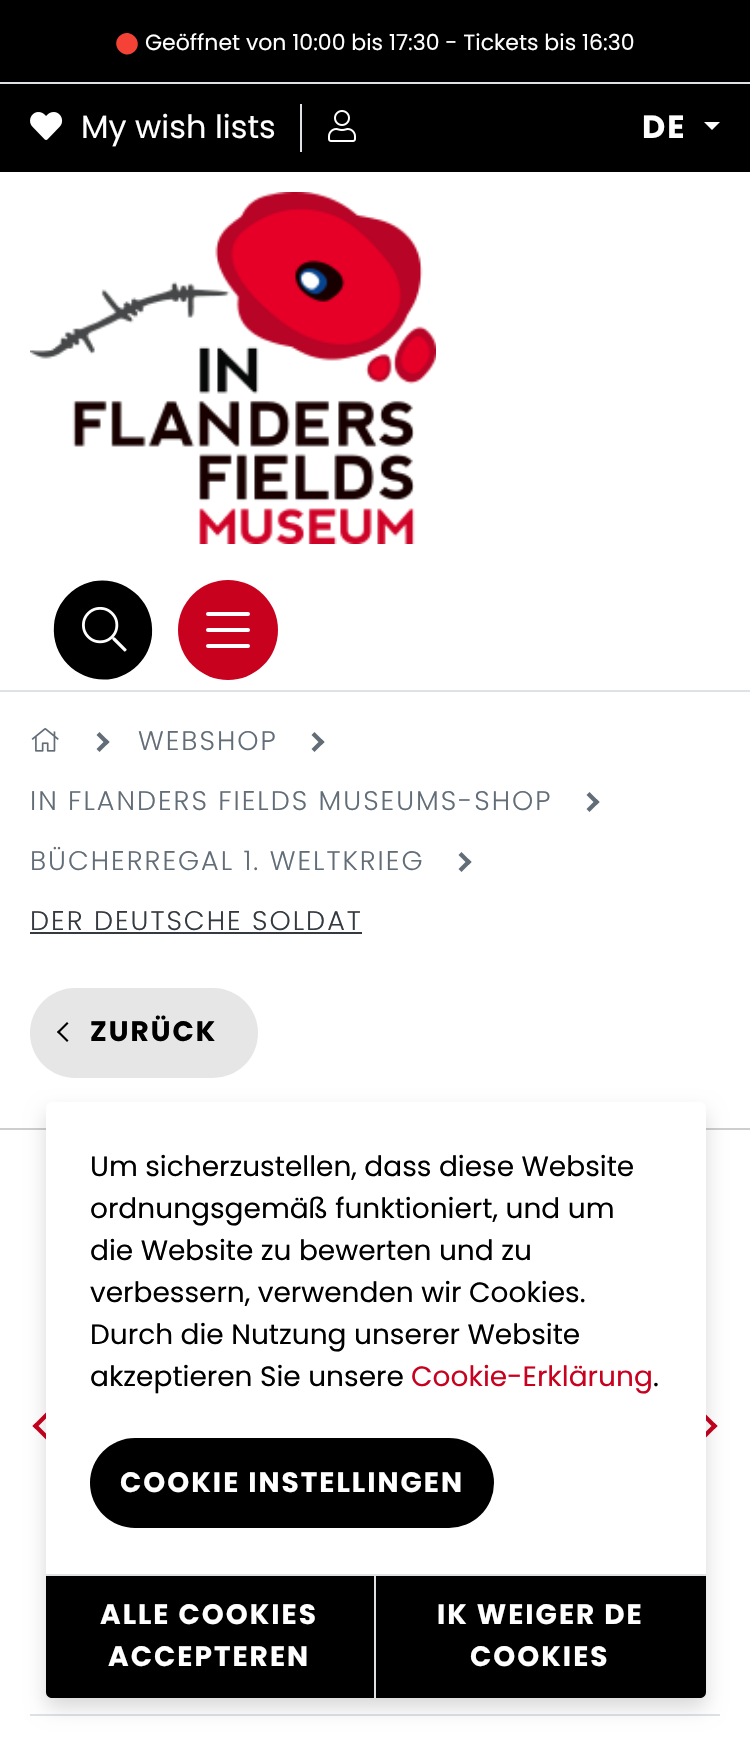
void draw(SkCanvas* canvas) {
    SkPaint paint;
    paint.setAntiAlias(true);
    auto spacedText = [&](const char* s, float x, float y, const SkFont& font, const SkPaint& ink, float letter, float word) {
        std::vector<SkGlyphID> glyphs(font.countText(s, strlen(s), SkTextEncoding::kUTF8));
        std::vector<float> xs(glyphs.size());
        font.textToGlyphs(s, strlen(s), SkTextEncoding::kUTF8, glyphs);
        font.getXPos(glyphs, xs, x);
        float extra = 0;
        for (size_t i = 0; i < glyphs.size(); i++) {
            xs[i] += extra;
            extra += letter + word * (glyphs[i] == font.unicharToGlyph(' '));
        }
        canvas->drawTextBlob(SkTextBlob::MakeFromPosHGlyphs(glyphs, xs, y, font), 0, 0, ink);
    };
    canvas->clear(0xFFFFFFFF);
    paint.setColor(0xFF000000);
    canvas->drawRect(SkRect::MakeXYWH(0, 0, 750, 172), paint);
    paint.setColor(0xFFF44336);
    canvas->drawPath(SkPathBuilder().moveTo(119.5f, 36).cubicTo(129.5f, 26.5f, 144.5f, 41.5f, 134.5f, 51.5f).cubicTo(124.5f, 61, 109.5f, 46, 119.5f, 36).close().detach(), paint);
    SkFont font1(fontMgr->matchFamilyStyle("Poppins", SkFontStyle::Normal()), 22);
    font1.setSubpixel(true);
    paint.setColor(0xFFFFFFFF);
    canvas->drawString("Geöffnet von 10:00 bis 17:30 - Tickets bis 16:30", 145, 50, font1, paint);
    paint.setColor(0xFFDEE2E6);
    canvas->drawRect(SkRect::MakeXYWH(0, 82, 750, 2), paint);
    canvas->drawRect(SkRect::MakeXYWH(300, 104, 2, 48), paint);
    canvas->drawImageRect(SkImages::DeferredFromEncodedData(SkData::MakeFromFileName("img1.png")), SkRect::MakeXYWH(30, 112, 33, 28), SkSamplingOptions());
    SkFont font2(fontMgr->matchFamilyStyle("Poppins", SkFontStyle::Normal()), 32);
    font2.setSubpixel(true);
    paint.setColor(0xFFFFFFFF);
    canvas->drawString("My wish lists", 81, 138, font2, paint);
    canvas->drawImageRect(SkImages::DeferredFromEncodedData(SkData::MakeFromFileName("img2.png")), SkRect::MakeXYWH(328, 110, 28, 32), SkSamplingOptions());
    SkFont font3(fontMgr->matchFamilyStyle("Poppins", SkFontStyle::Bold()), 32);
    font3.setSubpixel(true);
    spacedText("DE", 642, 138, font3, paint, 2, 0);
    canvas->drawPath(SkPathBuilder().moveTo(704, 122).lineTo(720, 122).lineTo(712, 130).close().detach(), paint);
    paint.setColor(0xFFDEE2E6);
    canvas->drawRect(SkRect::MakeXYWH(0, 690, 750, 2), paint);
    canvas->drawImageRect(SkImages::DeferredFromEncodedData(SkData::MakeFromFileName("img3.png")), SkRect::MakeXYWH(30, 192, 406, 352), SkSamplingOptions());
    paint.setColor(0xFF000000);
    canvas->drawPath(SkPathBuilder().moveTo(68, 595).cubicTo(101, 562, 156, 589, 152, 635).cubicTo(151, 646, 146, 657, 138, 665).cubicTo(105, 698, 50, 671, 54, 625).cubicTo(55, 613, 60, 603, 68, 595).close().detach(), paint);
    canvas->drawImageRect(SkImages::DeferredFromEncodedData(SkData::MakeFromFileName("img4.png")), SkRect::MakeXYWH(82, 606, 45, 46), SkSamplingOptions());
    paint.setColor(0xFFC8011F);
    canvas->drawCircle(228, 630, 50, paint);
    paint.setColor(0xFFFFFFFF);
    canvas->drawRoundRect(SkRect::MakeXYWH(206, 628, 44, 4), 2, 2, paint);
    canvas->drawRoundRect(SkRect::MakeXYWH(206, 612, 44, 4), 2, 2, paint);
    canvas->drawRoundRect(SkRect::MakeXYWH(206, 644, 44, 4), 2, 2, paint);
    paint.setColor(0xFFCECECE);
    canvas->drawRect(SkRect::MakeXYWH(0, 1128, 750, 2), paint);
    canvas->drawImageRect(SkImages::DeferredFromEncodedData(SkData::MakeFromFileName("img5.png")), SkRect::MakeXYWH(31, 728, 28, 24), SkSamplingOptions());
    paint.setColor(0xFF626D78);
    canvas->drawPath(SkPathBuilder().moveTo(96.5f, 735).lineTo(99.5f, 732).lineTo(109.5f, 742).lineTo(106.5f, 745).close().detach(), paint);
    canvas->drawPath(SkPathBuilder().moveTo(96.5f, 749).lineTo(106.5f, 739).lineTo(109.5f, 742).lineTo(99.5f, 752).close().detach(), paint);
    SkFont font4(fontMgr->matchFamilyStyle("Poppins", SkFontStyle(300, SkFontStyle::kNormal_Width, SkFontStyle::kUpright_Slant)), 27);
    font4.setSubpixel(true);
    spacedText("WEBSHOP", 138, 750, font4, paint, 2, 0);
    canvas->drawPath(SkPathBuilder().moveTo(311.5f, 735).lineTo(314.5f, 732).lineTo(324.5f, 742).lineTo(321.5f, 745).close().detach(), paint);
    canvas->drawPath(SkPathBuilder().moveTo(311.5f, 749).lineTo(321.5f, 739).lineTo(324.5f, 742).lineTo(314.5f, 752).close().detach(), paint);
    spacedText("IN FLANDERS FIELDS MUSEUMS-SHOP", 30, 810, font4, paint, 2, 0);
    canvas->drawPath(SkPathBuilder().moveTo(586.5f, 795).lineTo(589.5f, 792).lineTo(599.5f, 802).lineTo(596.5f, 805).close().detach(), paint);
    canvas->drawPath(SkPathBuilder().moveTo(586.5f, 809).lineTo(596.5f, 799).lineTo(599.5f, 802).lineTo(589.5f, 812).close().detach(), paint);
    spacedText("BÜCHERREGAL 1. WELTKRIEG", 30, 870, font4, paint, 2, 0);
    canvas->drawPath(SkPathBuilder().moveTo(458.5f, 855).lineTo(461.5f, 852).lineTo(471.5f, 862).lineTo(468.5f, 865).close().detach(), paint);
    canvas->drawPath(SkPathBuilder().moveTo(458.5f, 869).lineTo(468.5f, 859).lineTo(471.5f, 862).lineTo(461.5f, 872).close().detach(), paint);
    paint.setColor(0xFF343A40);
    spacedText("DER DEUTSCHE SOLDAT", 30, 930, font4, paint, 2, 0);
    canvas->drawRect(SkRect::MakeXYWH(30, 932, 332, 2), paint);
    paint.setColor(0xFFE6E6E6);
    canvas->drawRoundRect(SkRect::MakeXYWH(30, 988, 228, 90), 45, 45, paint);
    paint.setColor(0xFF000000);
    canvas->drawPath(SkPathBuilder().moveTo(68.5f, 1040.5f).lineTo(67, 1042).lineTo(57, 1032).lineTo(58.5f, 1030.5f).close().detach(), paint);
    canvas->drawPath(SkPathBuilder().moveTo(68.5f, 1023.5f).lineTo(58.5f, 1033.5f).lineTo(57, 1032).lineTo(67, 1022).close().detach(), paint);
    SkFont font5(fontMgr->matchFamilyStyle("Poppins", SkFontStyle::Bold()), 28);
    font5.setSubpixel(true);
    spacedText("ZURÜCK", 90, 1041, font5, paint, 2, 0);
    paint.setColor(0xFFC8011F);
    canvas->drawPath(SkPathBuilder().moveTo(64, 1451.5f).lineTo(61, 1454.5f).lineTo(32.5f, 1426).lineTo(35.5f, 1423).close().detach(), paint);
    canvas->drawPath(SkPathBuilder().moveTo(64, 1400.5f).lineTo(35.5f, 1429).lineTo(32.5f, 1426).lineTo(61, 1397.5f).close().detach(), paint);
    canvas->drawPath(SkPathBuilder().moveTo(686, 1400.5f).lineTo(689, 1397.5f).lineTo(717.5f, 1426).lineTo(714.5f, 1429).close().detach(), paint);
    canvas->drawPath(SkPathBuilder().moveTo(686, 1451.5f).lineTo(714.5f, 1423).lineTo(717.5f, 1426).lineTo(689, 1454.5f).close().detach(), paint);
    paint.setColor(0xFFDEE2E6);
    canvas->drawRect(SkRect::MakeXYWH(30, 1714, 690, 2), paint);
    paint.setColor(0x26000000);
    paint.setMaskFilter(SkMaskFilter::MakeBlur(kNormal_SkBlurStyle, 10));
    canvas->drawRoundRect(SkRect::MakeXYWH(46, 1112, 660, 596), 6, 6, paint);
    paint.setMaskFilter(nullptr);
    paint.setColor(0xFFFFFFFF);
    canvas->drawRoundRect(SkRect::MakeXYWH(46, 1102, 660, 596), 6, 6, paint);
    SkFont font6(fontMgr->matchFamilyStyle("Poppins", SkFontStyle::Normal()), 28);
    font6.setSubpixel(true);
    paint.setColor(0xFF000000);
    canvas->drawString("Um sicherzustellen, dass diese Website", 90, 1176, font6, paint);
    canvas->drawString("ordnungsgemäß funktioniert, und um", 90, 1218, font6, paint);
    canvas->drawString("die Website zu bewerten und zu", 90, 1260, font6, paint);
    canvas->drawString("verbessern, verwenden wir Cookies.", 90, 1302, font6, paint);
    canvas->drawString("Durch die Nutzung unserer Website", 90, 1344, font6, paint);
    canvas->drawString("akzeptieren Sie unsere", 90, 1386, font6, paint);
    paint.setColor(0xFFC8011F);
    canvas->drawString("Cookie-Erklärung", 411, 1386, font6, paint);
    paint.setColor(0xFF000000);
    canvas->drawString(".", 653, 1386, font6, paint);
    canvas->drawRoundRect(SkRect::MakeXYWH(90, 1438, 404, 90), 45, 45, paint);
    paint.setColor(0xFFFFFFFF);
    spacedText("COOKIE INSTELLINGEN", 120, 1492, font5, paint, 2, 0);
    paint.setColor(0xFF000000);
    canvas->drawPath(SkPathBuilder().moveTo(46, 1574).lineTo(376, 1574).lineTo(376, 1698).lineTo(52, 1698).cubicTo(48.5f, 1698, 46, 1695.5f, 46, 1692).close().detach(), paint);
    paint.setColor(0xFFDEE2E6);
    canvas->drawRect(SkRect::MakeXYWH(46, 1574, 330, 2), paint);
    canvas->drawRect(SkRect::MakeXYWH(374, 1574, 2, 124), paint);
    paint.setColor(0xFFFFFFFF);
    spacedText("ALLE COOKIES", 100, 1624, font5, paint, 2, 0);
    spacedText("ACCEPTEREN", 108, 1666, font5, paint, 2, 0);
    paint.setColor(0xFF000000);
    canvas->drawPath(SkPathBuilder().moveTo(376, 1574).lineTo(706, 1574).lineTo(706, 1692).cubicTo(706, 1695.5f, 703.5f, 1698, 700, 1698).lineTo(376, 1698).close().detach(), paint);
    paint.setColor(0xFFDEE2E6);
    canvas->drawRect(SkRect::MakeXYWH(376, 1574, 330, 2), paint);
    paint.setColor(0xFFFFFFFF);
    spacedText("IK WEIGER DE", 437, 1624, font5, paint, 2, 0);
    spacedText("COOKIES", 470, 1666, font5, paint, 2, 0);
}
